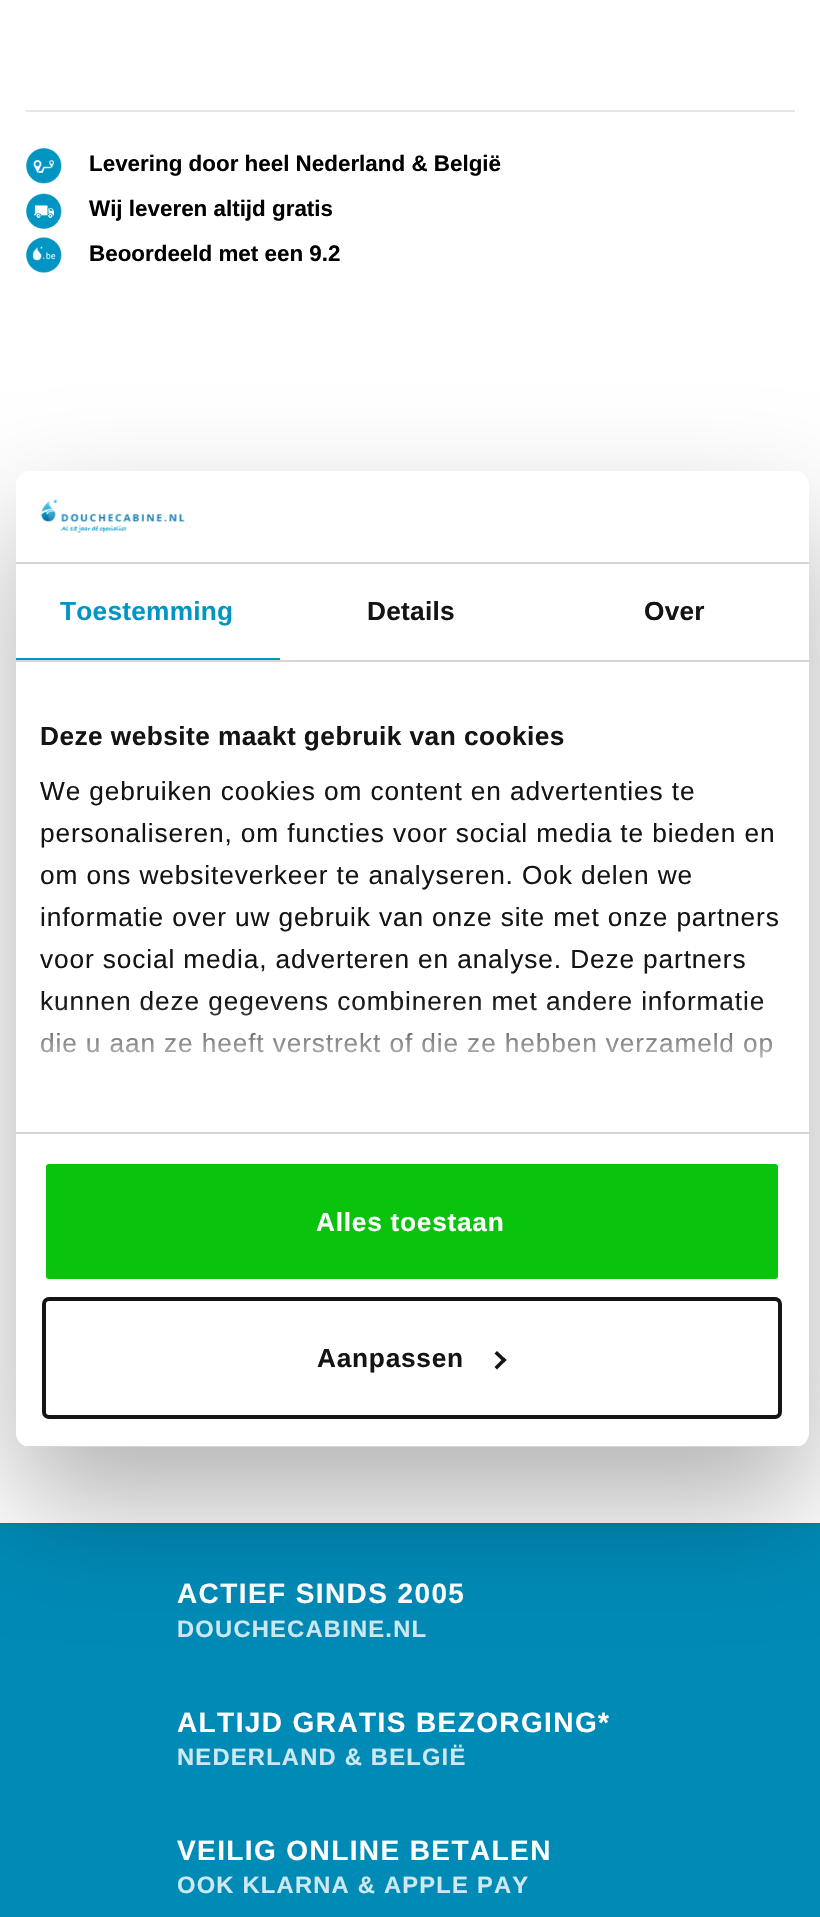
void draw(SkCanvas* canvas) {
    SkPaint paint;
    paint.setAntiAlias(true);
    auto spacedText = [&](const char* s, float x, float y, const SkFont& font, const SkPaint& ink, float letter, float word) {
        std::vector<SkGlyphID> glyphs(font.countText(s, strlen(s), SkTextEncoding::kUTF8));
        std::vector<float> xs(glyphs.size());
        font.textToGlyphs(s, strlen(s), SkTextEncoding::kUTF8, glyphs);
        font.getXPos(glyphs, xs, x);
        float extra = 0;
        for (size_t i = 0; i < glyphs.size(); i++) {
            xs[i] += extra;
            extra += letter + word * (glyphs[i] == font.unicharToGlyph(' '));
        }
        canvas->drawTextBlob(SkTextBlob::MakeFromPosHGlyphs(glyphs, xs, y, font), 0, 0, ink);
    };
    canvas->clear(0xFFFFFFFF);
    paint.setColor(0xFFE6E6E6);
    canvas->drawRect(SkRect::MakeXYWH(26, 110, 769, 2), paint);
    canvas->drawImageRect(SkImages::DeferredFromEncodedData(SkData::MakeFromFileName("img1.png")), SkRect::MakeXYWH(26, 148, 36, 36), SkSamplingOptions());
    SkFont font1(fontMgr->matchFamilyStyle("Liberation Sans", SkFontStyle::Bold()), 22.4f);
    font1.setSubpixel(true);
    paint.setColor(0xFF000000);
    canvas->drawString("Levering door heel Nederland & België", 89, 171, font1, paint);
    canvas->drawImageRect(SkImages::DeferredFromEncodedData(SkData::MakeFromFileName("img2.png")), SkRect::MakeXYWH(26, 193, 36, 36), SkSamplingOptions());
    canvas->drawString("Wij leveren altijd gratis", 89, 216, font1, paint);
    canvas->drawImageRect(SkImages::DeferredFromEncodedData(SkData::MakeFromFileName("img3.png")), SkRect::MakeXYWH(26, 237, 36, 36), SkSamplingOptions());
    canvas->drawString("Beoordeeld met een 9.2", 89, 261, font1, paint);
    paint.setColor(0xFF008AB6);
    canvas->drawRect(SkRect::MakeXYWH(0, 1525, 820, 392), paint);
    paint.setColor(0xFF0083AD);
    canvas->drawRect(SkRect::MakeXYWH(0, 1523, 820, 2), paint);
    SkFont font2(fontMgr->matchFamilyStyle("Liberation Sans", SkFontStyle::Bold()), 28);
    font2.setSubpixel(true);
    paint.setColor(0xFFFFFFFF);
    spacedText("ACTIEF SINDS 2005", 177, 1603, font2, paint, 1.4f, 0);
    SkFont font3(fontMgr->matchFamilyStyle("Liberation Sans", SkFontStyle::Bold()), 23.75f);
    font3.setSubpixel(true);
    paint.setColor(0xFFCCE8F0);
    spacedText("DOUCHECABINE.NL", 177, 1637, font3, paint, 1.2f, 0);
    paint.setColor(0xFFFFFFFF);
    spacedText("ALTIJD GRATIS BEZORGING*", 177, 1732, font2, paint, 1.4f, 0);
    paint.setColor(0xFFCCE8F0);
    spacedText("NEDERLAND & BELGIË", 177, 1765, font3, paint, 1.2f, 0);
    paint.setColor(0xFFFFFFFF);
    spacedText("VEILIG ONLINE BETALEN", 177, 1860, font2, paint, 1.4f, 0);
    paint.setColor(0xFFCCE8F0);
    spacedText("OOK KLARNA & APPLE PAY", 177, 1893, font3, paint, 1.2f, 0);
    paint.setColor(0x4D000000);
    paint.setMaskFilter(SkMaskFilter::MakeBlur(kNormal_SkBlurStyle, 59.5f));
    canvas->drawRoundRect(SkRect::MakeXYWH(16, 527, 793, 976), 14, 14, paint);
    paint.setMaskFilter(nullptr);
    paint.setColor(0xFFFFFFFF);
    canvas->drawRoundRect(SkRect::MakeXYWH(16, 471, 793, 976), 14, 14, paint);
    paint.setColor(0xFFD6D6D6);
    canvas->drawRect(SkRect::MakeXYWH(16, 562, 793, 2), paint);
    canvas->drawImageRect(SkImages::DeferredFromEncodedData(SkData::MakeFromFileName("img4.png")), SkRect::MakeXYWH(41, 499, 144, 34), SkSamplingOptions());
    canvas->drawRect(SkRect::MakeXYWH(16, 660, 793, 2), paint);
    paint.setColor(0xFF0095C3);
    canvas->drawRect(SkRect::MakeXYWH(16, 658, 264, 2), paint);
    SkFont font4(fontMgr->matchFamilyStyle("Liberation Sans", SkFontStyle::Bold()), 26.25f);
    font4.setSubpixel(true);
    spacedText("Toestemming", 60, 620, font4, paint, 0.25f, 0);
    paint.setColor(0xFF141414);
    spacedText("Details", 367, 620, font4, paint, 0.25f, 0);
    spacedText("Over", 644, 620, font4, paint, 0.25f, 0);
    paint.setColor(0xFFD6D6D6);
    canvas->drawRect(SkRect::MakeXYWH(16, 1132, 793, 2), paint);
    paint.setColor(0xFF141414);
    spacedText("Deze website maakt gebruik van cookies", 40, 745, font4, paint, 0.45f, 0);
    SkFont font5(fontMgr->matchFamilyStyle("Liberation Sans", SkFontStyle::Normal()), 26.25f);
    font5.setSubpixel(true);
    spacedText("We gebruiken cookies om content en advertenties te", 40, 800, font5, paint, 0.88f, 0);
    spacedText("personaliseren, om functies voor social media te bieden en", 40, 842, font5, paint, 0.88f, 0);
    spacedText("om ons websiteverkeer te analyseren. Ook delen we", 40, 884, font5, paint, 0.88f, 0);
    spacedText("informatie over uw gebruik van onze site met onze partners", 40, 926, font5, paint, 0.88f, 0);
    spacedText("voor social media, adverteren en analyse. Deze partners", 40, 968, font5, paint, 0.88f, 0);
    spacedText("kunnen deze gegevens combineren met andere informatie", 40, 1010, font5, paint, 0.88f, 0);
    spacedText("die u aan ze heeft verstrekt of die ze hebben verzameld op", 40, 1052, font5, paint, 0.88f, 0);
    {
        const SkColor colors[] = {0xFFFFFFFF, 0xCCFFFFFF, 0x00FFFFFF};
        const float stops[] = {0, 0.5f, 1};
        const SkPoint ends[] = {{400, 1132}, {400, 1001}};
        paint.setShader(SkGradientShader::MakeLinear(ends, colors, stops, 3, SkTileMode::kClamp));
        paint.setAlpha(255);
    }
    canvas->drawRect(SkRect::MakeXYWH(41, 1003, 731, 55), paint);
    canvas->save();
    canvas->clipPath(SkPathBuilder().moveTo(30, 471).lineTo(795, 471).cubicTo(802.5f, 471, 809, 477.5f, 809, 485).lineTo(809, 1433).cubicTo(809, 1440.5f, 802.5f, 1447, 795, 1447).lineTo(30, 1447).cubicTo(22.5f, 1447, 16, 1440.5f, 16, 1433).lineTo(16, 485).cubicTo(16, 477.5f, 22.5f, 471, 30, 471).close().detach(), true);
    paint.setShader(nullptr);
    paint.setColor(0xFFD6D6D6);
    canvas->drawRect(SkRect::MakeXYWH(25, 1446, 775, 1), paint);
    canvas->restore();
    paint.setColor(0xFF0AC30D);
    canvas->drawRoundRect(SkRect::MakeXYWH(44, 1162, 736, 119), 5, 5, paint);
    paint.setStyle(SkPaint::kStroke_Style);
    paint.setStrokeWidth(4);
    paint.setColor(0xFFFFFFFF);
    canvas->drawRoundRect(SkRect::MakeXYWH(44, 1162, 736, 119), 5, 5, paint);
    paint.setStyle(SkPaint::kFill_Style);
    spacedText("Alles toestaan", 316, 1231, font4, paint, 0.75f, 0);
    paint.setStyle(SkPaint::kStroke_Style);
    paint.setColor(0xFF141414);
    canvas->drawRoundRect(SkRect::MakeXYWH(44, 1299, 736, 118), 5, 5, paint);
    paint.setStyle(SkPaint::kFill_Style);
    spacedText("Aanpassen", 317, 1367, font4, paint, 0.75f, 0);
    canvas->drawPath(SkPathBuilder().moveTo(497, 1351).lineTo(506.5f, 1360).lineTo(504, 1362.5f).lineTo(494.5f, 1353.5f).close().detach(), paint);
    canvas->drawPath(SkPathBuilder().moveTo(504, 1357.5f).lineTo(506.5f, 1360).lineTo(497, 1369.5f).lineTo(494.5f, 1367).close().detach(), paint);
}
